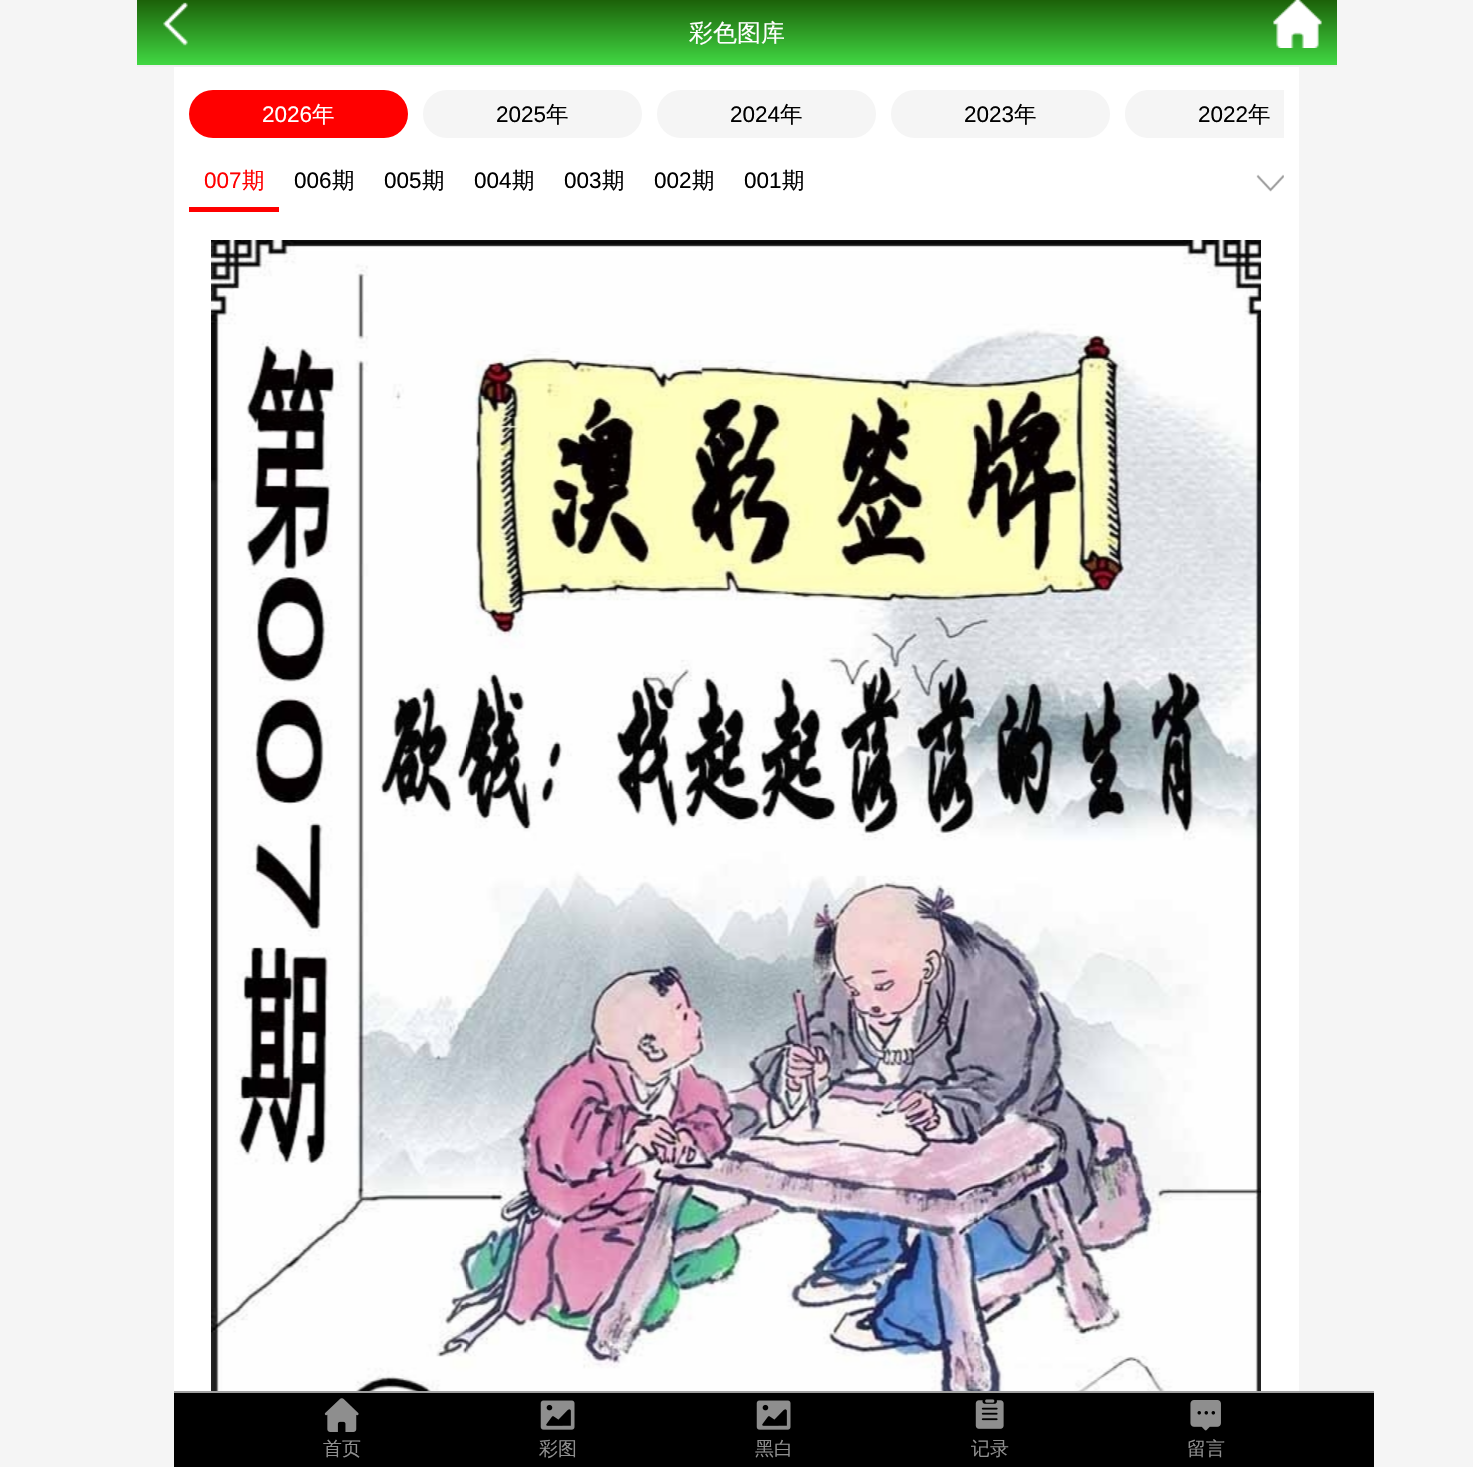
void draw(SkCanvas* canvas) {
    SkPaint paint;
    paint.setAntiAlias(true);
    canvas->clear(0xFFF5F5F5);
    paint.setColor(0xFFFFFFFF);
    canvas->drawRect(SkRect::MakeXYWH(174, 67, 1125, 1324), paint);
    {
        const SkColor colors[] = {0xFF41D843, 0xFF1C6109};
        const float stops[] = {0, 1};
        const SkPoint ends[] = {{737, 65}, {737, 0}};
        paint.setShader(SkGradientShader::MakeLinear(ends, colors, stops, 2, SkTileMode::kClamp));
        paint.setAlpha(255);
    }
    canvas->drawRect(SkRect::MakeXYWH(137, 0, 1200, 65), paint);
    paint.setShader(nullptr);
    paint.setColor(0xFFEFEFEF);
    canvas->drawRect(SkRect::MakeXYWH(137, 65, 1200, 2), paint);
    canvas->drawImageRect(SkImages::DeferredFromEncodedData(SkData::MakeFromFileName("img1.png")), SkRect::MakeXYWH(163, 2, 25, 44), SkSamplingOptions());
    SkFont font1(fontMgr->matchFamilyStyle("WenQuanYi Zen Hei", SkFontStyle(500, SkFontStyle::kNormal_Width, SkFontStyle::kUpright_Slant)), 24);
    font1.setSubpixel(true);
    paint.setColor(0xFFFFFFFF);
    canvas->drawString("彩色图库", 689, 41, font1, paint);
    canvas->drawImageRect(SkImages::DeferredFromEncodedData(SkData::MakeFromFileName("img2.png")), SkRect::MakeXYWH(1273, 0, 49, 48), SkSamplingOptions());
    paint.setColor(0xFFFF0000);
    canvas->drawRoundRect(SkRect::MakeXYWH(189, 90, 219, 48), 24, 24, paint);
    SkFont font2(fontMgr->matchFamilyStyle("Liberation Sans", SkFontStyle::Normal()), 22.5f);
    font2.setSubpixel(true);
    paint.setColor(0xFFFFFFFF);
    canvas->drawString("2026", 262, 122, font2, paint);
    SkFont font3(fontMgr->matchFamilyStyle("WenQuanYi Zen Hei", SkFontStyle(500, SkFontStyle::kNormal_Width, SkFontStyle::kUpright_Slant)), 22.5f);
    font3.setSubpixel(true);
    canvas->drawString("年", 312, 122, font3, paint);
    paint.setColor(0xFFF5F5F5);
    canvas->drawRoundRect(SkRect::MakeXYWH(423, 90, 219, 48), 24, 24, paint);
    paint.setColor(0xFF000000);
    canvas->drawString("2025", 496, 122, font2, paint);
    canvas->drawString("年", 546, 122, font3, paint);
    paint.setColor(0xFFF5F5F5);
    canvas->drawRoundRect(SkRect::MakeXYWH(657, 90, 219, 48), 24, 24, paint);
    paint.setColor(0xFF000000);
    canvas->drawString("2024", 730, 122, font2, paint);
    canvas->drawString("年", 780, 122, font3, paint);
    paint.setColor(0xFFF5F5F5);
    canvas->drawRoundRect(SkRect::MakeXYWH(891, 90, 219, 48), 24, 24, paint);
    paint.setColor(0xFF000000);
    canvas->drawString("2023", 964, 122, font2, paint);
    canvas->drawString("年", 1014, 122, font3, paint);
    paint.setColor(0xFFF5F5F5);
    canvas->drawPath(SkPathBuilder().moveTo(1149, 90).lineTo(1284, 90).lineTo(1284, 138).lineTo(1149, 138).cubicTo(1135.5f, 138, 1125, 127.5f, 1125, 114).cubicTo(1125, 100.5f, 1135.5f, 90, 1149, 90).close().detach(), paint);
    paint.setColor(0xFF000000);
    canvas->drawString("2022", 1198, 122, font2, paint);
    canvas->drawString("年", 1248, 122, font3, paint);
    paint.setColor(0xFFFF0000);
    canvas->drawRect(SkRect::MakeXYWH(189, 207, 90, 5), paint);
    canvas->drawString("007", 204, 188, font2, paint);
    canvas->drawString("期", 242, 188, font3, paint);
    paint.setColor(0xFF000000);
    canvas->drawString("006", 294, 188, font2, paint);
    canvas->drawString("期", 332, 188, font3, paint);
    canvas->drawString("005", 384, 188, font2, paint);
    canvas->drawString("期", 422, 188, font3, paint);
    canvas->drawString("004", 474, 188, font2, paint);
    canvas->drawString("期", 512, 188, font3, paint);
    canvas->drawString("003", 564, 188, font2, paint);
    canvas->drawString("期", 602, 188, font3, paint);
    canvas->drawString("002", 654, 188, font2, paint);
    canvas->drawString("期", 692, 188, font3, paint);
    canvas->drawString("001", 744, 188, font2, paint);
    canvas->drawString("期", 782, 188, font3, paint);
    canvas->drawImageRect(SkImages::DeferredFromEncodedData(SkData::MakeFromFileName("img3.png")), SkRect::MakeXYWH(1256, 174, 28, 18), SkSamplingOptions());
    canvas->drawImageRect(SkImages::DeferredFromEncodedData(SkData::MakeFromFileName("img4.png")), SkRect::MakeXYWH(211, 240, 1050, 1151), SkSamplingOptions());
    canvas->drawRect(SkRect::MakeXYWH(174, 1393, 1200, 74), paint);
    paint.setColor(0xFF9F9F9F);
    canvas->drawRect(SkRect::MakeXYWH(174, 1391, 1200, 2), paint);
    canvas->drawImageRect(SkImages::DeferredFromEncodedData(SkData::MakeFromFileName("img5.png")), SkRect::MakeXYWH(324, 1398, 35, 34), SkSamplingOptions());
    SkFont font4(fontMgr->matchFamilyStyle("WenQuanYi Zen Hei", SkFontStyle(500, SkFontStyle::kNormal_Width, SkFontStyle::kUpright_Slant)), 19);
    font4.setSubpixel(true);
    paint.setColor(0xFF8E8E8E);
    canvas->drawString("首页", 323, 1455, font4, paint);
    canvas->drawImageRect(SkImages::DeferredFromEncodedData(SkData::MakeFromFileName("img6.png")), SkRect::MakeXYWH(540, 1400, 35, 30), SkSamplingOptions());
    canvas->drawString("彩图", 539, 1455, font4, paint);
    canvas->drawImageRect(SkImages::DeferredFromEncodedData(SkData::MakeFromFileName("img6.png")), SkRect::MakeXYWH(756, 1400, 35, 30), SkSamplingOptions());
    canvas->drawString("黑白", 755, 1455, font4, paint);
    canvas->drawImageRect(SkImages::DeferredFromEncodedData(SkData::MakeFromFileName("img7.png")), SkRect::MakeXYWH(975, 1399, 29, 30), SkSamplingOptions());
    canvas->drawString("记录", 971, 1455, font4, paint);
    canvas->drawImageRect(SkImages::DeferredFromEncodedData(SkData::MakeFromFileName("img8.png")), SkRect::MakeXYWH(1190, 1400, 31, 31), SkSamplingOptions());
    canvas->drawString("留言", 1187, 1455, font4, paint);
}
